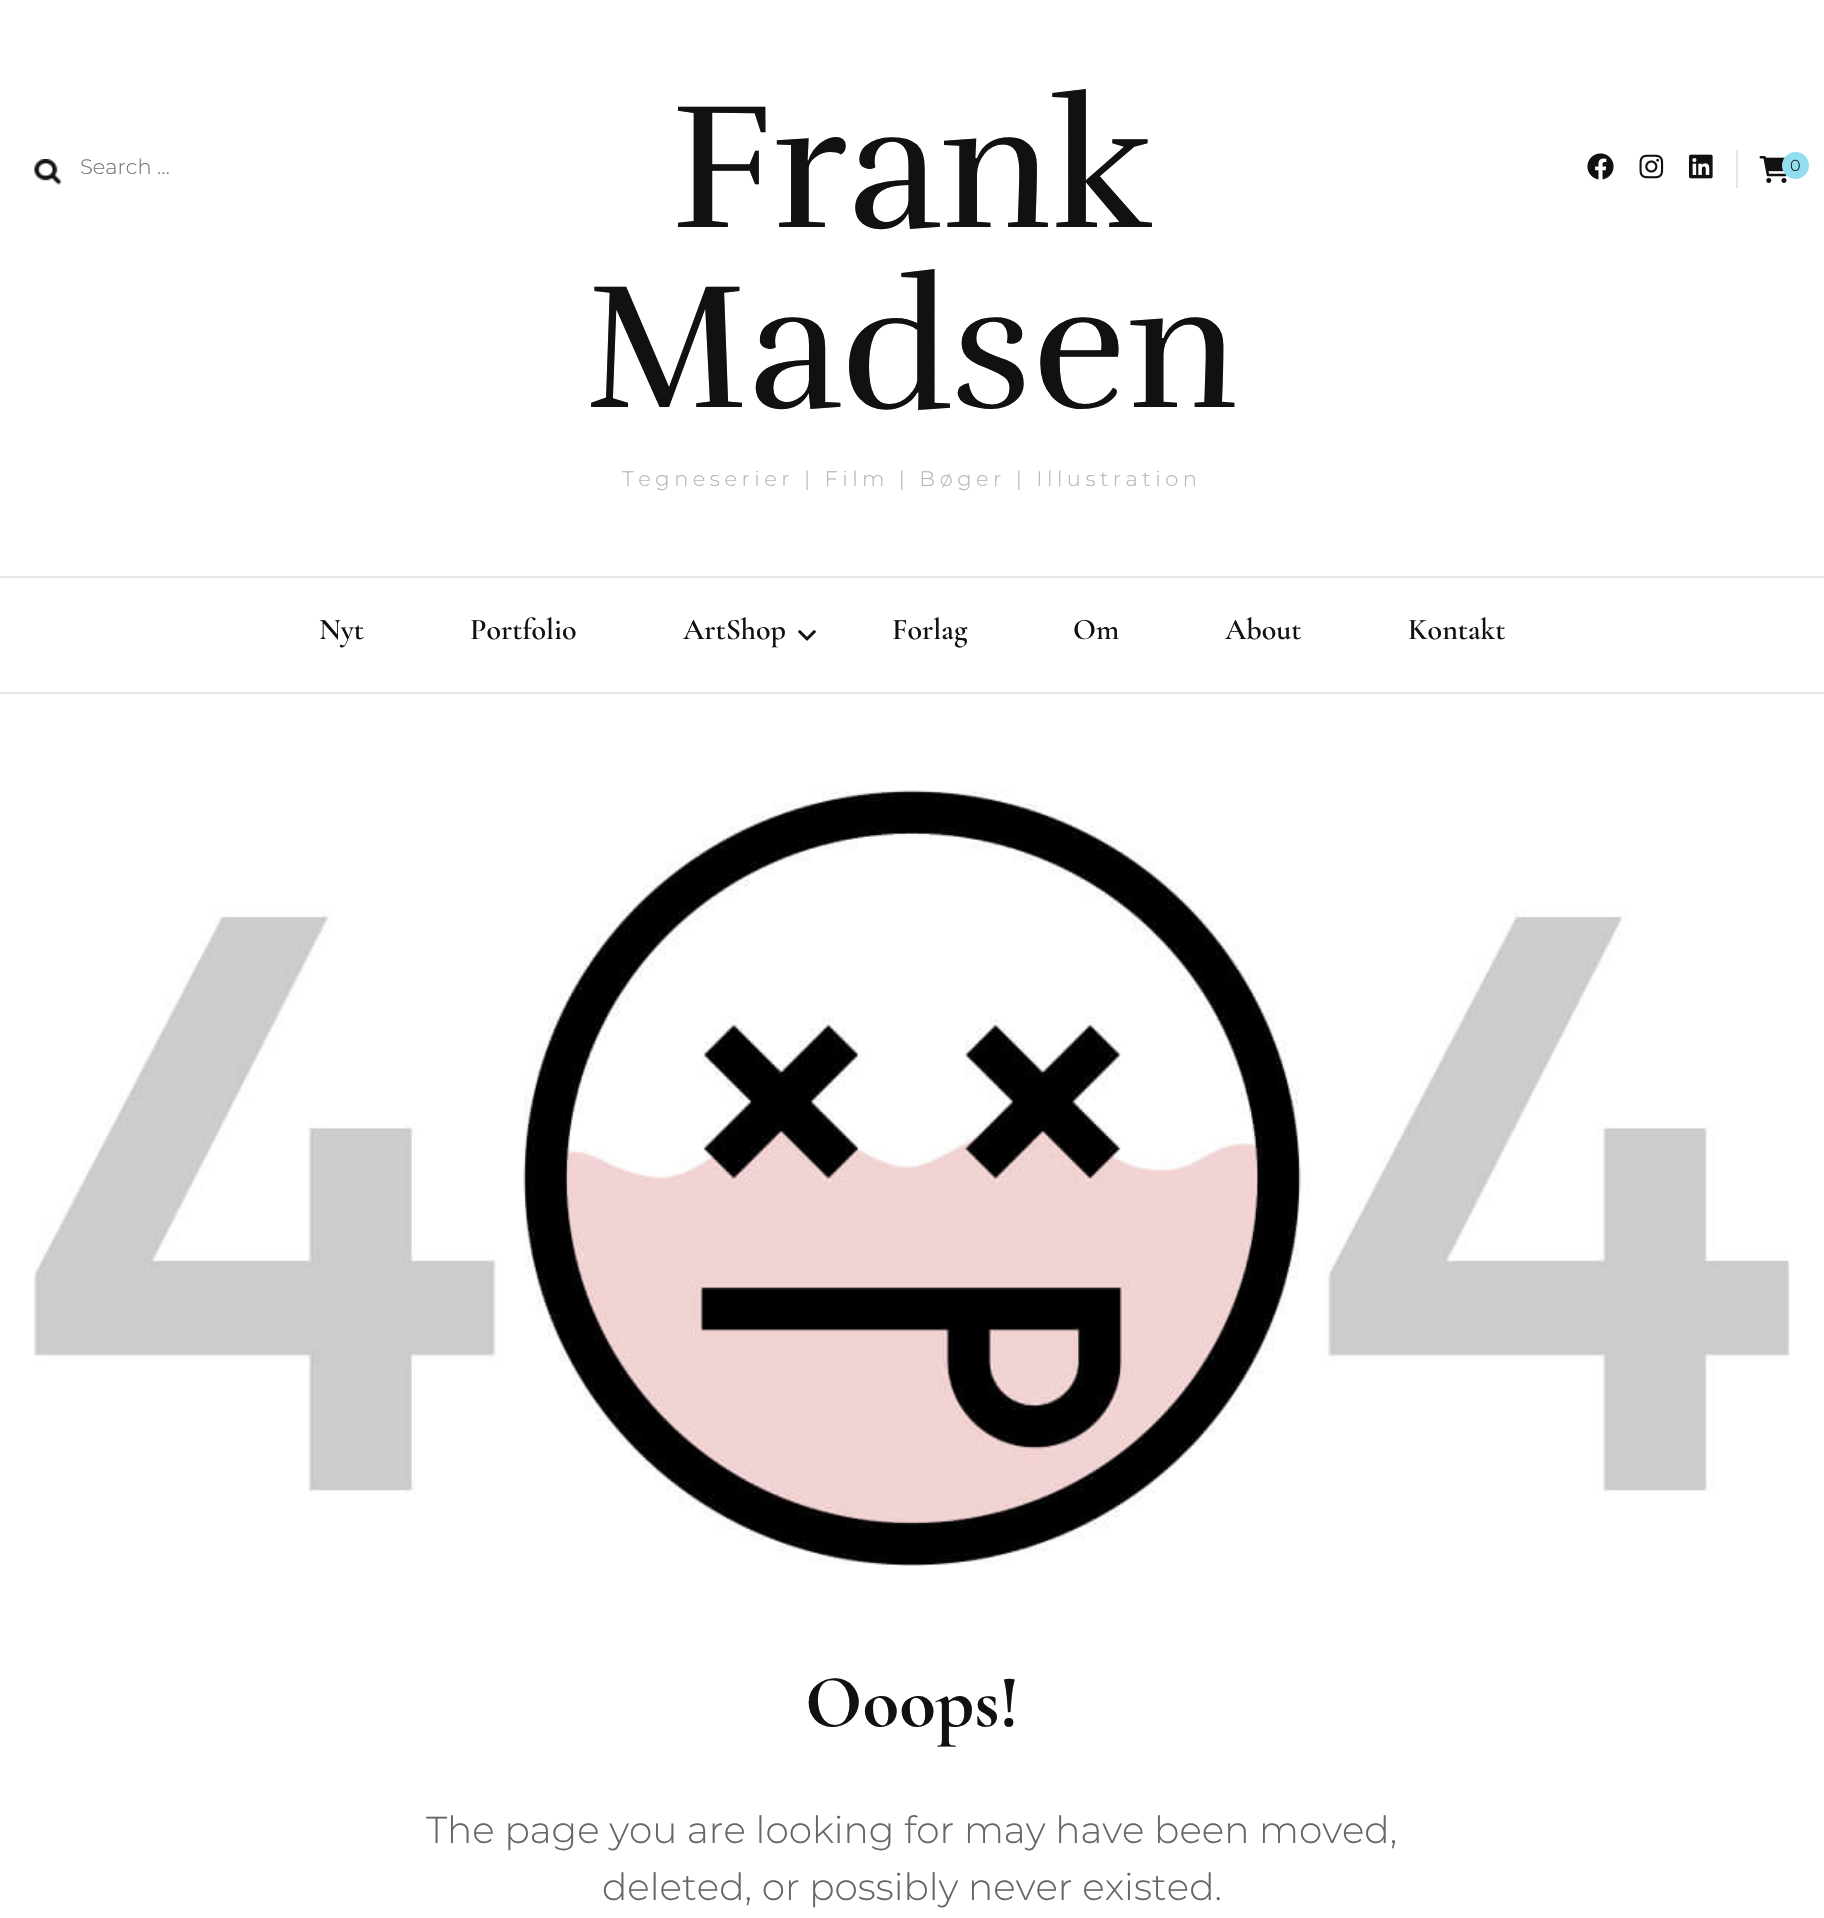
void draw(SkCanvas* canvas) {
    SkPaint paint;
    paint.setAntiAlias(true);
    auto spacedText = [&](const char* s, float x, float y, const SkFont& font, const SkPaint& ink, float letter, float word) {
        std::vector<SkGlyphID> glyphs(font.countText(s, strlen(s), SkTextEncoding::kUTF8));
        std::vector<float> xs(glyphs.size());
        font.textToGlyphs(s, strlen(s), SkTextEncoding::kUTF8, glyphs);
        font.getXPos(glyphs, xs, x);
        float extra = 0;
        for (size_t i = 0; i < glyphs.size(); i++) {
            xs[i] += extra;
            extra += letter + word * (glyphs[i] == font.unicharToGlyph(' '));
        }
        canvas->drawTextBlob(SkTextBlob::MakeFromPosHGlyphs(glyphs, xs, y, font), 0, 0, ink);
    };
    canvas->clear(0xFFFFFFFF);
    canvas->drawImageRect(SkImages::DeferredFromEncodedData(SkData::MakeFromFileName("img1.png")), SkRect::MakeXYWH(34, 159, 28, 26), SkSamplingOptions());
    SkFont font1(fontMgr->matchFamilyStyle("Montserrat", SkFontStyle(300, SkFontStyle::kNormal_Width, SkFontStyle::kUpright_Slant)), 21);
    font1.setSubpixel(true);
    paint.setColor(0xFF757575);
    canvas->drawString("Search …", 80, 174, font1, paint);
    SkFont font2(fontMgr->matchFamilyStyle("Rufina", SkFontStyle::Normal()), 180);
    font2.setSubpixel(true);
    paint.setColor(0xFF111111);
    canvas->drawString("Frank", 671, 227, font2, paint);
    canvas->drawString("Madsen", 585, 407, font2, paint);
    paint.setColor(0xFFB5B5B5);
    spacedText("Tegneserier | Film | Bøger | Illustration", 622, 486, font1, paint, 4.5f, 0);
    canvas->drawImageRect(SkImages::DeferredFromEncodedData(SkData::MakeFromFileName("img2.png")), SkRect::MakeXYWH(1587, 153, 27, 27), SkSamplingOptions());
    canvas->drawImageRect(SkImages::DeferredFromEncodedData(SkData::MakeFromFileName("img3.png")), SkRect::MakeXYWH(1639, 154, 25, 25), SkSamplingOptions());
    canvas->drawImageRect(SkImages::DeferredFromEncodedData(SkData::MakeFromFileName("img4.png")), SkRect::MakeXYWH(1689, 154, 24, 25), SkSamplingOptions());
    paint.setColor(0xFFE5E5E5);
    canvas->drawRect(SkRect::MakeXYWH(1736, 150, 2, 38), paint);
    canvas->drawImageRect(SkImages::DeferredFromEncodedData(SkData::MakeFromFileName("img5.png")), SkRect::MakeXYWH(1759, 156, 28, 27), SkSamplingOptions());
    paint.setColor(0xFF92DDEF);
    canvas->drawCircle(1795.5f, 165.5f, 13.5f, paint);
    SkFont font3(fontMgr->matchFamilyStyle("Montserrat", SkFontStyle(300, SkFontStyle::kNormal_Width, SkFontStyle::kUpright_Slant)), 16);
    font3.setSubpixel(true);
    paint.setColor(0xFF111111);
    canvas->drawString("0", 1790, 171, font3, paint);
    paint.setColor(0xFFE5E5E5);
    canvas->drawRect(SkRect::MakeXYWH(0, 576, 1824, 2), paint);
    canvas->drawRect(SkRect::MakeXYWH(0, 692, 1824, 2), paint);
    SkFont font4(fontMgr->matchFamilyStyle("Cormorant Garamond", SkFontStyle(600, SkFontStyle::kNormal_Width, SkFontStyle::kUpright_Slant)), 30);
    font4.setSubpixel(true);
    paint.setColor(0xFF111111);
    canvas->drawString("Nyt", 319, 639, font4, paint);
    canvas->drawString("Portfolio", 470, 639, font4, paint);
    canvas->drawString("ArtShop", 683, 639, font4, paint);
    canvas->drawImageRect(SkImages::DeferredFromEncodedData(SkData::MakeFromFileName("img6.png")), SkRect::MakeXYWH(798, 630, 18, 11), SkSamplingOptions());
    canvas->drawString("Forlag", 892, 639, font4, paint);
    canvas->drawString("Om", 1073, 639, font4, paint);
    canvas->drawString("About", 1225, 639, font4, paint);
    canvas->drawString("Kontakt", 1408, 639, font4, paint);
    canvas->drawImageRect(SkImages::DeferredFromEncodedData(SkData::MakeFromFileName("img7.png")), SkRect::MakeXYWH(34, 790, 1756, 776), SkSamplingOptions());
    SkFont font5(fontMgr->matchFamilyStyle("Cormorant Garamond", SkFontStyle::Bold()), 75);
    font5.setSubpixel(true);
    canvas->drawString("Ooops!", 805, 1726, font5, paint);
    SkFont font6(fontMgr->matchFamilyStyle("Montserrat", SkFontStyle(300, SkFontStyle::kNormal_Width, SkFontStyle::kUpright_Slant)), 37.5f);
    font6.setSubpixel(true);
    paint.setColor(0xFF666666);
    canvas->drawString("The page you are looking for may have been moved,", 426, 1843, font6, paint);
    canvas->drawString("deleted, or possibly never existed.", 602, 1900, font6, paint);
}
